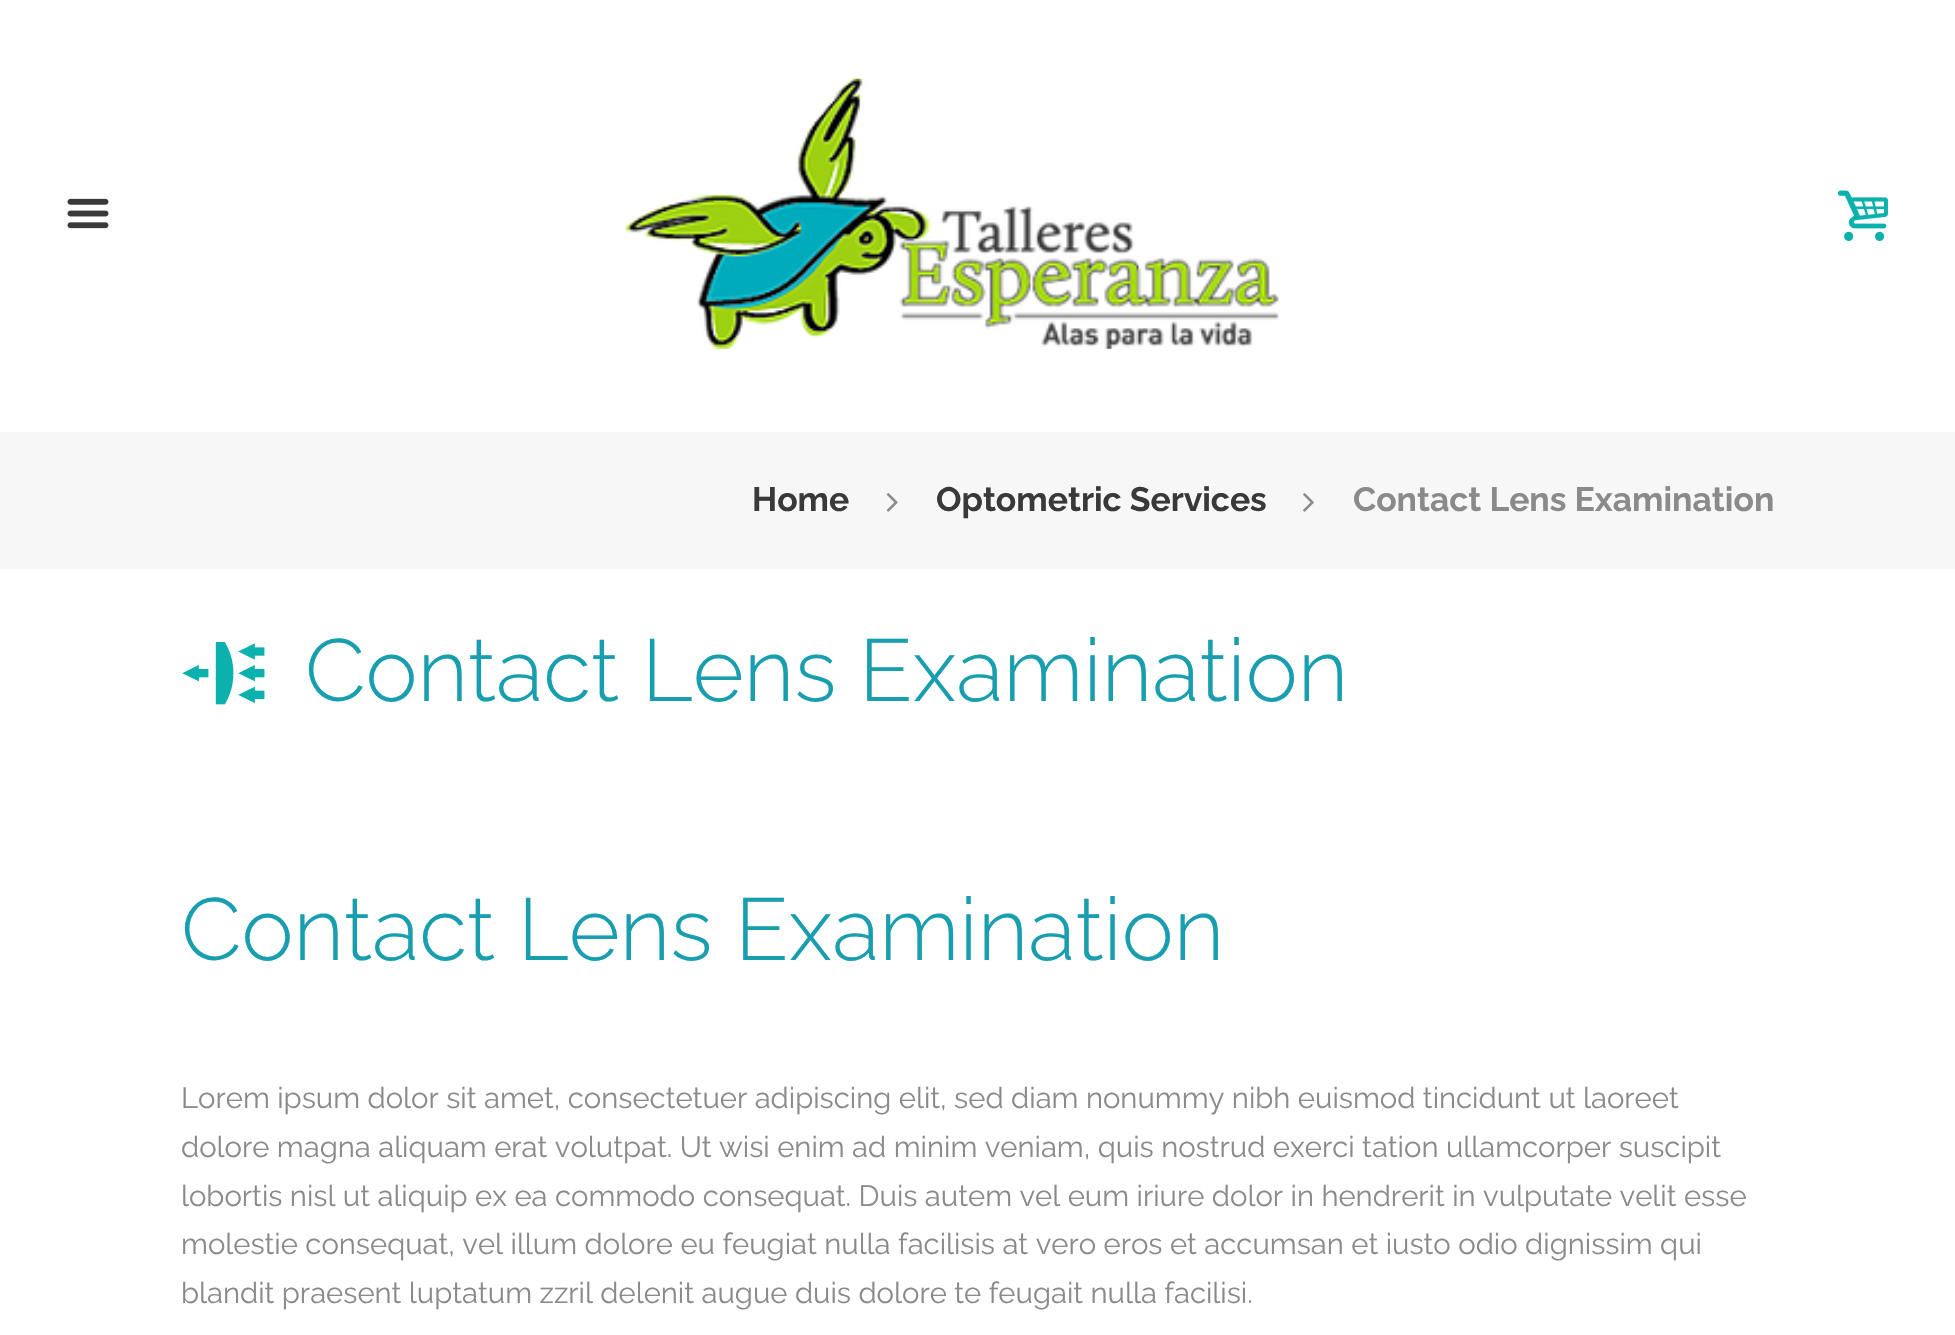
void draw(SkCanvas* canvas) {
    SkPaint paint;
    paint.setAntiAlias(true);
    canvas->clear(0xFFFFFFFF);
    canvas->drawImageRect(SkImages::DeferredFromEncodedData(SkData::MakeFromFileName("img1.png")), SkRect::MakeXYWH(67, 198, 42, 31), SkSamplingOptions());
    canvas->drawImageRect(SkImages::DeferredFromEncodedData(SkData::MakeFromFileName("img2.png")), SkRect::MakeXYWH(622, 78, 657, 271), SkSamplingOptions());
    canvas->drawImageRect(SkImages::DeferredFromEncodedData(SkData::MakeFromFileName("img3.png")), SkRect::MakeXYWH(1837, 190, 51, 51), SkSamplingOptions());
    paint.setColor(0xFFF7F7F7);
    canvas->drawRect(SkRect::MakeXYWH(0, 432, 1955, 137), paint);
    SkFont font1(fontMgr->matchFamilyStyle("Raleway", SkFontStyle::Bold()), 33.75f);
    font1.setSubpixel(true);
    paint.setColor(0xFF393939);
    canvas->drawString("Home", 752, 511, font1, paint);
    canvas->drawImageRect(SkImages::DeferredFromEncodedData(SkData::MakeFromFileName("img4.png")), SkRect::MakeXYWH(886, 493, 12, 19), SkSamplingOptions());
    canvas->drawString("Optometric Services", 936, 511, font1, paint);
    canvas->drawImageRect(SkImages::DeferredFromEncodedData(SkData::MakeFromFileName("img5.png")), SkRect::MakeXYWH(1303, 493, 11, 19), SkSamplingOptions());
    paint.setColor(0xFF8A8A8A);
    canvas->drawString("Contact Lens Examination", 1353, 511, font1, paint);
    canvas->drawImageRect(SkImages::DeferredFromEncodedData(SkData::MakeFromFileName("img6.png")), SkRect::MakeXYWH(182, 642, 83, 63), SkSamplingOptions());
    SkFont font2(fontMgr->matchFamilyStyle("Raleway", SkFontStyle(300, SkFontStyle::kNormal_Width, SkFontStyle::kUpright_Slant)), 87.75f);
    font2.setSubpixel(true);
    paint.setColor(0xFF189EAF);
    canvas->drawString("Contact Lens Examination", 305, 701, font2, paint);
    canvas->drawString("Contact Lens Examination", 181, 960, font2, paint);
    SkFont font3(fontMgr->matchFamilyStyle("Raleway", SkFontStyle::Normal()), 29.25f);
    font3.setSubpixel(true);
    paint.setColor(0xFF8A8A8A);
    canvas->drawString("Lorem ipsum dolor sit amet, consectetuer adipiscing elit, sed diam nonummy nibh euismod tincidunt ut laoreet", 181, 1108, font3, paint);
    canvas->drawString("dolore magna aliquam erat volutpat. Ut wisi enim ad minim veniam, quis nostrud exerci tation ullamcorper suscipit", 181, 1157, font3, paint);
    canvas->drawString("lobortis nisl ut aliquip ex ea commodo consequat. Duis autem vel eum iriure dolor in hendrerit in vulputate velit esse", 181, 1206, font3, paint);
    canvas->drawString("molestie consequat, vel illum dolore eu feugiat nulla facilisis at vero eros et accumsan et iusto odio dignissim qui", 181, 1254, font3, paint);
    canvas->drawString("blandit praesent luptatum zzril delenit augue duis dolore te feugait nulla facilisi.", 181, 1303, font3, paint);
}
